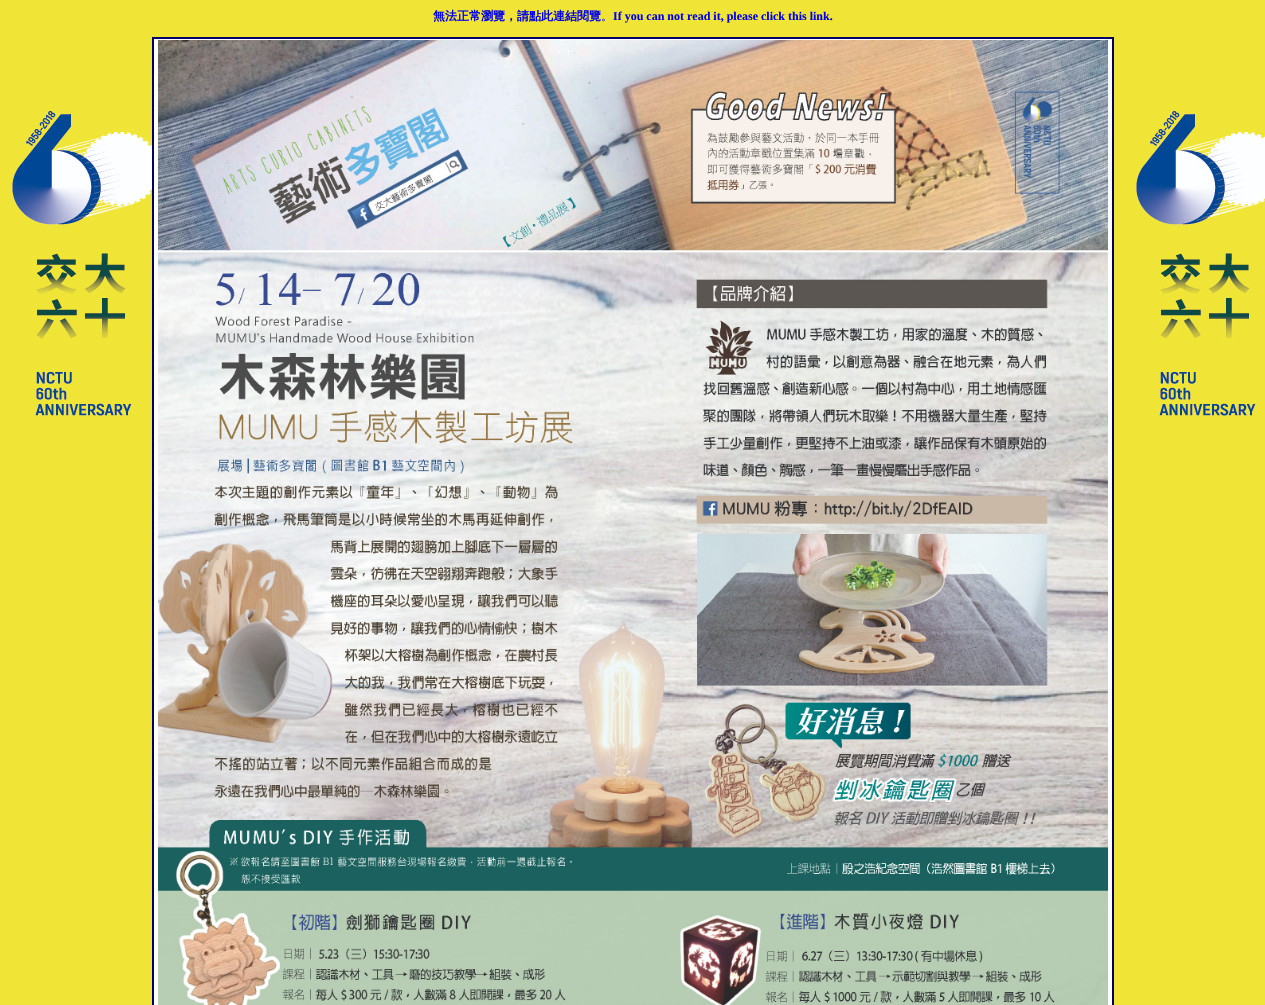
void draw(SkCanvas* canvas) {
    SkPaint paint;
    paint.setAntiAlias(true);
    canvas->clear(0xFFFFFFFF);
    canvas->drawImageRect(SkImages::DeferredFromEncodedData(SkData::MakeFromFileName("img1.png")), SkRect::MakeXYWH(0, 0, 1265, 1005), SkSamplingOptions());
    SkFont font1(fontMgr->matchFamilyStyle("WenQuanYi Zen Hei", SkFontStyle::Bold()), 12);
    font1.setSubpixel(true);
    paint.setColor(0xFF0000EE);
    canvas->drawString("無法正常瀏覽，請點此連結閱覽", 433, 20, font1, paint);
    SkFont font2(fontMgr->matchFamilyStyle("WenQuanYi Zen Hei", SkFontStyle(500, SkFontStyle::kNormal_Width, SkFontStyle::kUpright_Slant)), 12);
    font2.setSubpixel(true);
    canvas->drawString("。", 601, 20, font2, paint);
    SkFont font3(fontMgr->matchFamilyStyle("Liberation Serif", SkFontStyle::Bold()), 12);
    font3.setSubpixel(true);
    canvas->drawString("If you can not read it, please click this link.", 613, 20, font3, paint);
    paint.setColor(0xFFFFFFFF);
    canvas->drawRect(SkRect::MakeXYWH(154, 39, 958, 966), paint);
    paint.setStyle(SkPaint::kStroke_Style);
    paint.setStrokeWidth(1);
    paint.setColor(0xFF000066);
    canvas->drawRect(SkRect::MakeXYWH(152.5f, 37.5f, 961, 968), paint);
    canvas->drawRect(SkRect::MakeXYWH(153.5f, 38.5f, 959, 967), paint);
    canvas->drawImageRect(SkImages::DeferredFromEncodedData(SkData::MakeFromFileName("img2.png")), SkRect::MakeXYWH(158, 40, 950, 965), SkSamplingOptions());
}
